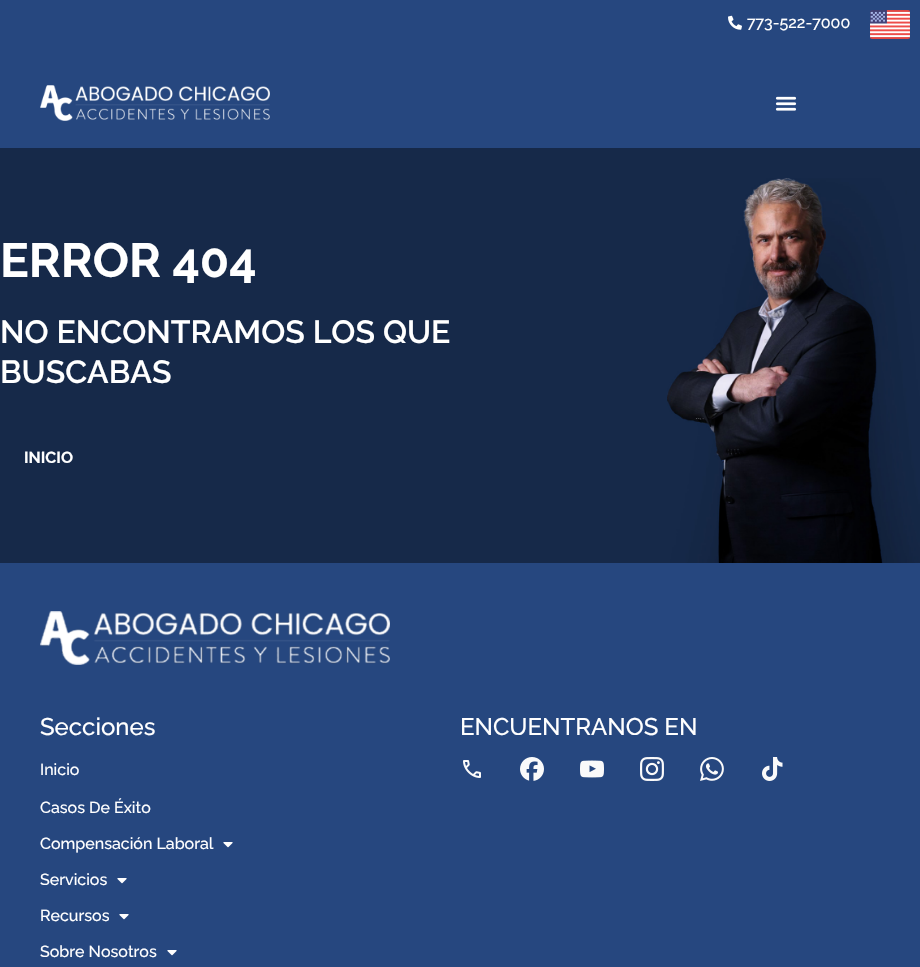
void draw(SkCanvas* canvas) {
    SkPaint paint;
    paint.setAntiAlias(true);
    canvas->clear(0xFF26477F);
    canvas->drawImageRect(SkImages::DeferredFromEncodedData(SkData::MakeFromFileName("img1.png")), SkRect::MakeXYWH(728, 15, 14, 15), SkSamplingOptions());
    SkFont font1(fontMgr->matchFamilyStyle("Raleway", SkFontStyle(500, SkFontStyle::kNormal_Width, SkFontStyle::kUpright_Slant)), 16);
    font1.setSubpixel(true);
    paint.setColor(0xFFFFFFFF);
    canvas->drawString("773-522-7000", 747, 28, font1, paint);
    canvas->drawImageRect(SkImages::DeferredFromEncodedData(SkData::MakeFromFileName("img2.png")), SkRect::MakeXYWH(870, 10, 40, 29), SkSamplingOptions());
    canvas->drawImageRect(SkImages::DeferredFromEncodedData(SkData::MakeFromFileName("img3.png")), SkRect::MakeXYWH(40, 85, 230, 36), SkSamplingOptions());
    canvas->drawImageRect(SkImages::DeferredFromEncodedData(SkData::MakeFromFileName("img4.png")), SkRect::MakeXYWH(775, 96, 22, 15), SkSamplingOptions());
    paint.setColor(0xFF162949);
    canvas->drawRect(SkRect::MakeXYWH(0, 148, 920, 415), paint);
    SkFont font2(fontMgr->matchFamilyStyle("Raleway", SkFontStyle::Bold()), 48);
    font2.setSubpixel(true);
    paint.setColor(0xFFFFFFFF);
    canvas->drawString("ERROR 404", 0, 277, font2, paint);
    SkFont font3(fontMgr->matchFamilyStyle("Raleway", SkFontStyle(600, SkFontStyle::kNormal_Width, SkFontStyle::kUpright_Slant)), 32);
    font3.setSubpixel(true);
    canvas->drawString("NO ENCONTRAMOS LOS QUE", 0, 343, font3, paint);
    canvas->drawString("BUSCABAS", 0, 383, font3, paint);
    SkFont font4(fontMgr->matchFamilyStyle("Raleway", SkFontStyle::Bold()), 16);
    font4.setSubpixel(true);
    canvas->drawString("INICIO", 24, 463, font4, paint);
    canvas->drawImageRect(SkImages::DeferredFromEncodedData(SkData::MakeFromFileName("img5.png")), SkRect::MakeXYWH(667, 178, 253, 385), SkSamplingOptions());
    canvas->drawImageRect(SkImages::DeferredFromEncodedData(SkData::MakeFromFileName("img6.png")), SkRect::MakeXYWH(40, 611, 350, 54), SkSamplingOptions());
    SkFont font5(fontMgr->matchFamilyStyle("Raleway", SkFontStyle(500, SkFontStyle::kNormal_Width, SkFontStyle::kUpright_Slant)), 24);
    font5.setSubpixel(true);
    canvas->drawString("Secciones", 40, 735, font5, paint);
    canvas->drawString("Inicio", 40, 775, font1, paint);
    canvas->drawString("Casos De Éxito", 40, 813, font1, paint);
    canvas->drawString("Compensación Laboral", 40, 849, font1, paint);
    canvas->drawImageRect(SkImages::DeferredFromEncodedData(SkData::MakeFromFileName("img7.png")), SkRect::MakeXYWH(223, 842, 10, 6), SkSamplingOptions());
    canvas->drawString("Servicios", 40, 885, font1, paint);
    canvas->drawImageRect(SkImages::DeferredFromEncodedData(SkData::MakeFromFileName("img7.png")), SkRect::MakeXYWH(117, 878, 10, 6), SkSamplingOptions());
    canvas->drawString("Recursos", 40, 921, font1, paint);
    canvas->drawImageRect(SkImages::DeferredFromEncodedData(SkData::MakeFromFileName("img7.png")), SkRect::MakeXYWH(119, 914, 10, 6), SkSamplingOptions());
    canvas->drawString("Sobre Nosotros", 40, 957, font1, paint);
    canvas->drawImageRect(SkImages::DeferredFromEncodedData(SkData::MakeFromFileName("img7.png")), SkRect::MakeXYWH(167, 950, 10, 6), SkSamplingOptions());
    canvas->drawString("ENCUENTRANOS EN", 460, 735, font5, paint);
    canvas->drawImageRect(SkImages::DeferredFromEncodedData(SkData::MakeFromFileName("img8.png")), SkRect::MakeXYWH(463, 760, 18, 18), SkSamplingOptions());
    canvas->drawImageRect(SkImages::DeferredFromEncodedData(SkData::MakeFromFileName("img9.png")), SkRect::MakeXYWH(520, 757, 24, 24), SkSamplingOptions());
    canvas->drawImageRect(SkImages::DeferredFromEncodedData(SkData::MakeFromFileName("img10.png")), SkRect::MakeXYWH(580, 760, 24, 18), SkSamplingOptions());
    canvas->drawImageRect(SkImages::DeferredFromEncodedData(SkData::MakeFromFileName("img11.png")), SkRect::MakeXYWH(640, 757, 24, 24), SkSamplingOptions());
    canvas->drawImageRect(SkImages::DeferredFromEncodedData(SkData::MakeFromFileName("img12.png")), SkRect::MakeXYWH(700, 757, 24, 24), SkSamplingOptions());
    canvas->drawImageRect(SkImages::DeferredFromEncodedData(SkData::MakeFromFileName("img13.png")), SkRect::MakeXYWH(762, 757, 21, 24), SkSamplingOptions());
}
